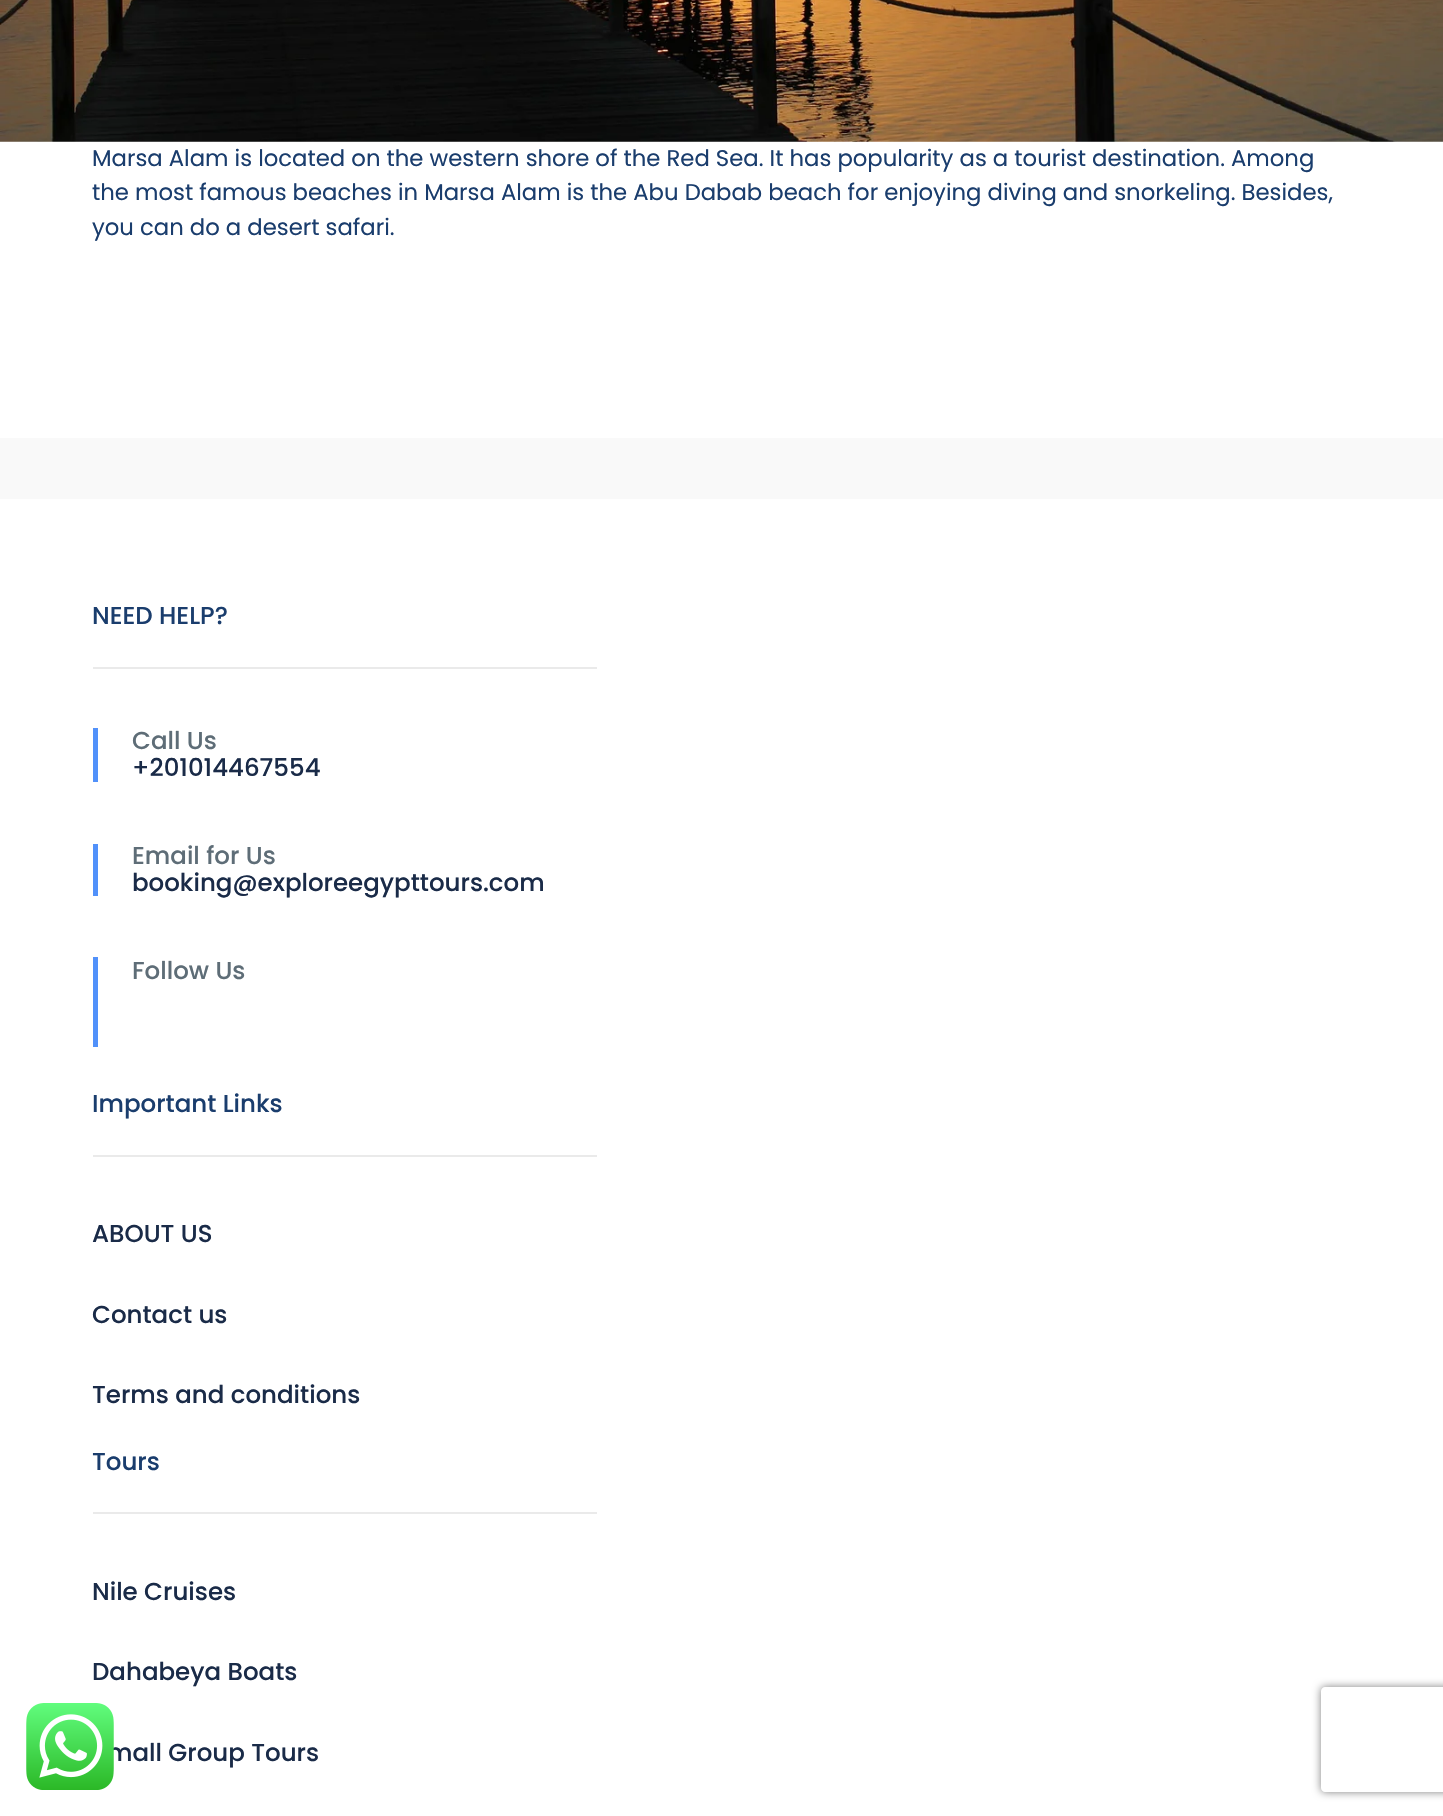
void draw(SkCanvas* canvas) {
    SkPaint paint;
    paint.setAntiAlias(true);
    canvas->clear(0xFFFFFFFF);
    canvas->drawImageRect(SkImages::DeferredFromEncodedData(SkData::MakeFromFileName("img1.png")), SkRect::MakeXYWH(0, 0, 1443, 142), SkSamplingOptions());
    SkFont font1(fontMgr->matchFamilyStyle("Poppins", SkFontStyle::Normal()), 22.75f);
    font1.setSubpixel(true);
    paint.setColor(0xFF1A3D6D);
    canvas->drawString("Marsa Alam is located on the western shore of the Red Sea. It has popularity as a tourist destination. Among", 92, 166, font1, paint);
    canvas->drawString("the most famous beaches in Marsa Alam is the Abu Dabab beach for enjoying diving and snorkeling. Besides,", 92, 200, font1, paint);
    canvas->drawString("you can do a desert safari.", 92, 235, font1, paint);
    SkFont font2(fontMgr->matchFamilyStyle("Poppins", SkFontStyle(500, SkFontStyle::kNormal_Width, SkFontStyle::kUpright_Slant)), 24.5f);
    font2.setSubpixel(true);
    paint.setColor(0xFF1A2B48);
    canvas->drawString("mall Group Tours", 107, 1761, font2, paint);
    canvas->drawImageRect(SkImages::DeferredFromEncodedData(SkData::MakeFromFileName("img2.png")), SkRect::MakeXYWH(26, 1703, 88, 87), SkSamplingOptions());
    paint.setColor(0xFFF9F9F9);
    canvas->drawRect(SkRect::MakeXYWH(0, 438, 1443, 61), paint);
    paint.setColor(0xFF1A3D6D);
    canvas->drawString("NEED HELP?", 92, 624, font2, paint);
    paint.setColor(0xFFEAEAEA);
    canvas->drawRect(SkRect::MakeXYWH(93, 667, 504, 2), paint);
    paint.setColor(0xFF5191FA);
    canvas->drawRect(SkRect::MakeXYWH(93, 728, 5, 54), paint);
    paint.setColor(0xFF5E6D77);
    canvas->drawString("Call Us", 132, 749, font2, paint);
    paint.setColor(0xFF1A2B48);
    canvas->drawString("+201014467554", 132, 776, font2, paint);
    paint.setColor(0xFF5191FA);
    canvas->drawRect(SkRect::MakeXYWH(93, 844, 5, 52), paint);
    paint.setColor(0xFF5E6D77);
    canvas->drawString("Email for Us", 132, 864, font2, paint);
    paint.setColor(0xFF1A2B48);
    canvas->drawString("booking@exploreegypttours.com", 132, 891, font2, paint);
    paint.setColor(0xFF5191FA);
    canvas->drawRect(SkRect::MakeXYWH(93, 957, 5, 90), paint);
    paint.setColor(0xFF5E6D77);
    canvas->drawString("Follow Us", 132, 979, font2, paint);
    paint.setColor(0xFF1A3D6D);
    canvas->drawString("Important Links", 92, 1112, font2, paint);
    paint.setColor(0xFFEAEAEA);
    canvas->drawRect(SkRect::MakeXYWH(93, 1155, 504, 2), paint);
    paint.setColor(0xFF1A2B48);
    canvas->drawString("ABOUT US", 92, 1242, font2, paint);
    canvas->drawString("Contact us", 92, 1323, font2, paint);
    canvas->drawString("Terms and conditions", 92, 1403, font2, paint);
    paint.setColor(0xFF1A3D6D);
    canvas->drawString("Tours", 92, 1470, font2, paint);
    paint.setColor(0xFFEAEAEA);
    canvas->drawRect(SkRect::MakeXYWH(93, 1512, 504, 2), paint);
    paint.setColor(0xFF1A2B48);
    canvas->drawString("Nile Cruises", 92, 1600, font2, paint);
    canvas->drawString("Dahabeya Boats", 92, 1680, font2, paint);
    canvas->save();
    canvas->clipPath(SkPathBuilder(SkPathFillType::kEvenOdd).moveTo(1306, 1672).lineTo(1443, 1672).lineTo(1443, 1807).lineTo(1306, 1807).close().moveTo(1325, 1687).lineTo(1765, 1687).cubicTo(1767, 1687, 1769, 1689, 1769, 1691).lineTo(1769, 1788).cubicTo(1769, 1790, 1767, 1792, 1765, 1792).lineTo(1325, 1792).cubicTo(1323, 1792, 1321, 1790, 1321, 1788).lineTo(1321, 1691).cubicTo(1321, 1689, 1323, 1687, 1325, 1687).close().detach(), true);
    paint.setColor(0xFF808080);
    paint.setMaskFilter(SkMaskFilter::MakeBlur(kNormal_SkBlurStyle, 4.5f));
    canvas->drawRoundRect(SkRect::MakeXYWH(1321, 1687, 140, 105), 4, 4, paint);
    paint.setMaskFilter(nullptr);
    canvas->restore();
}
